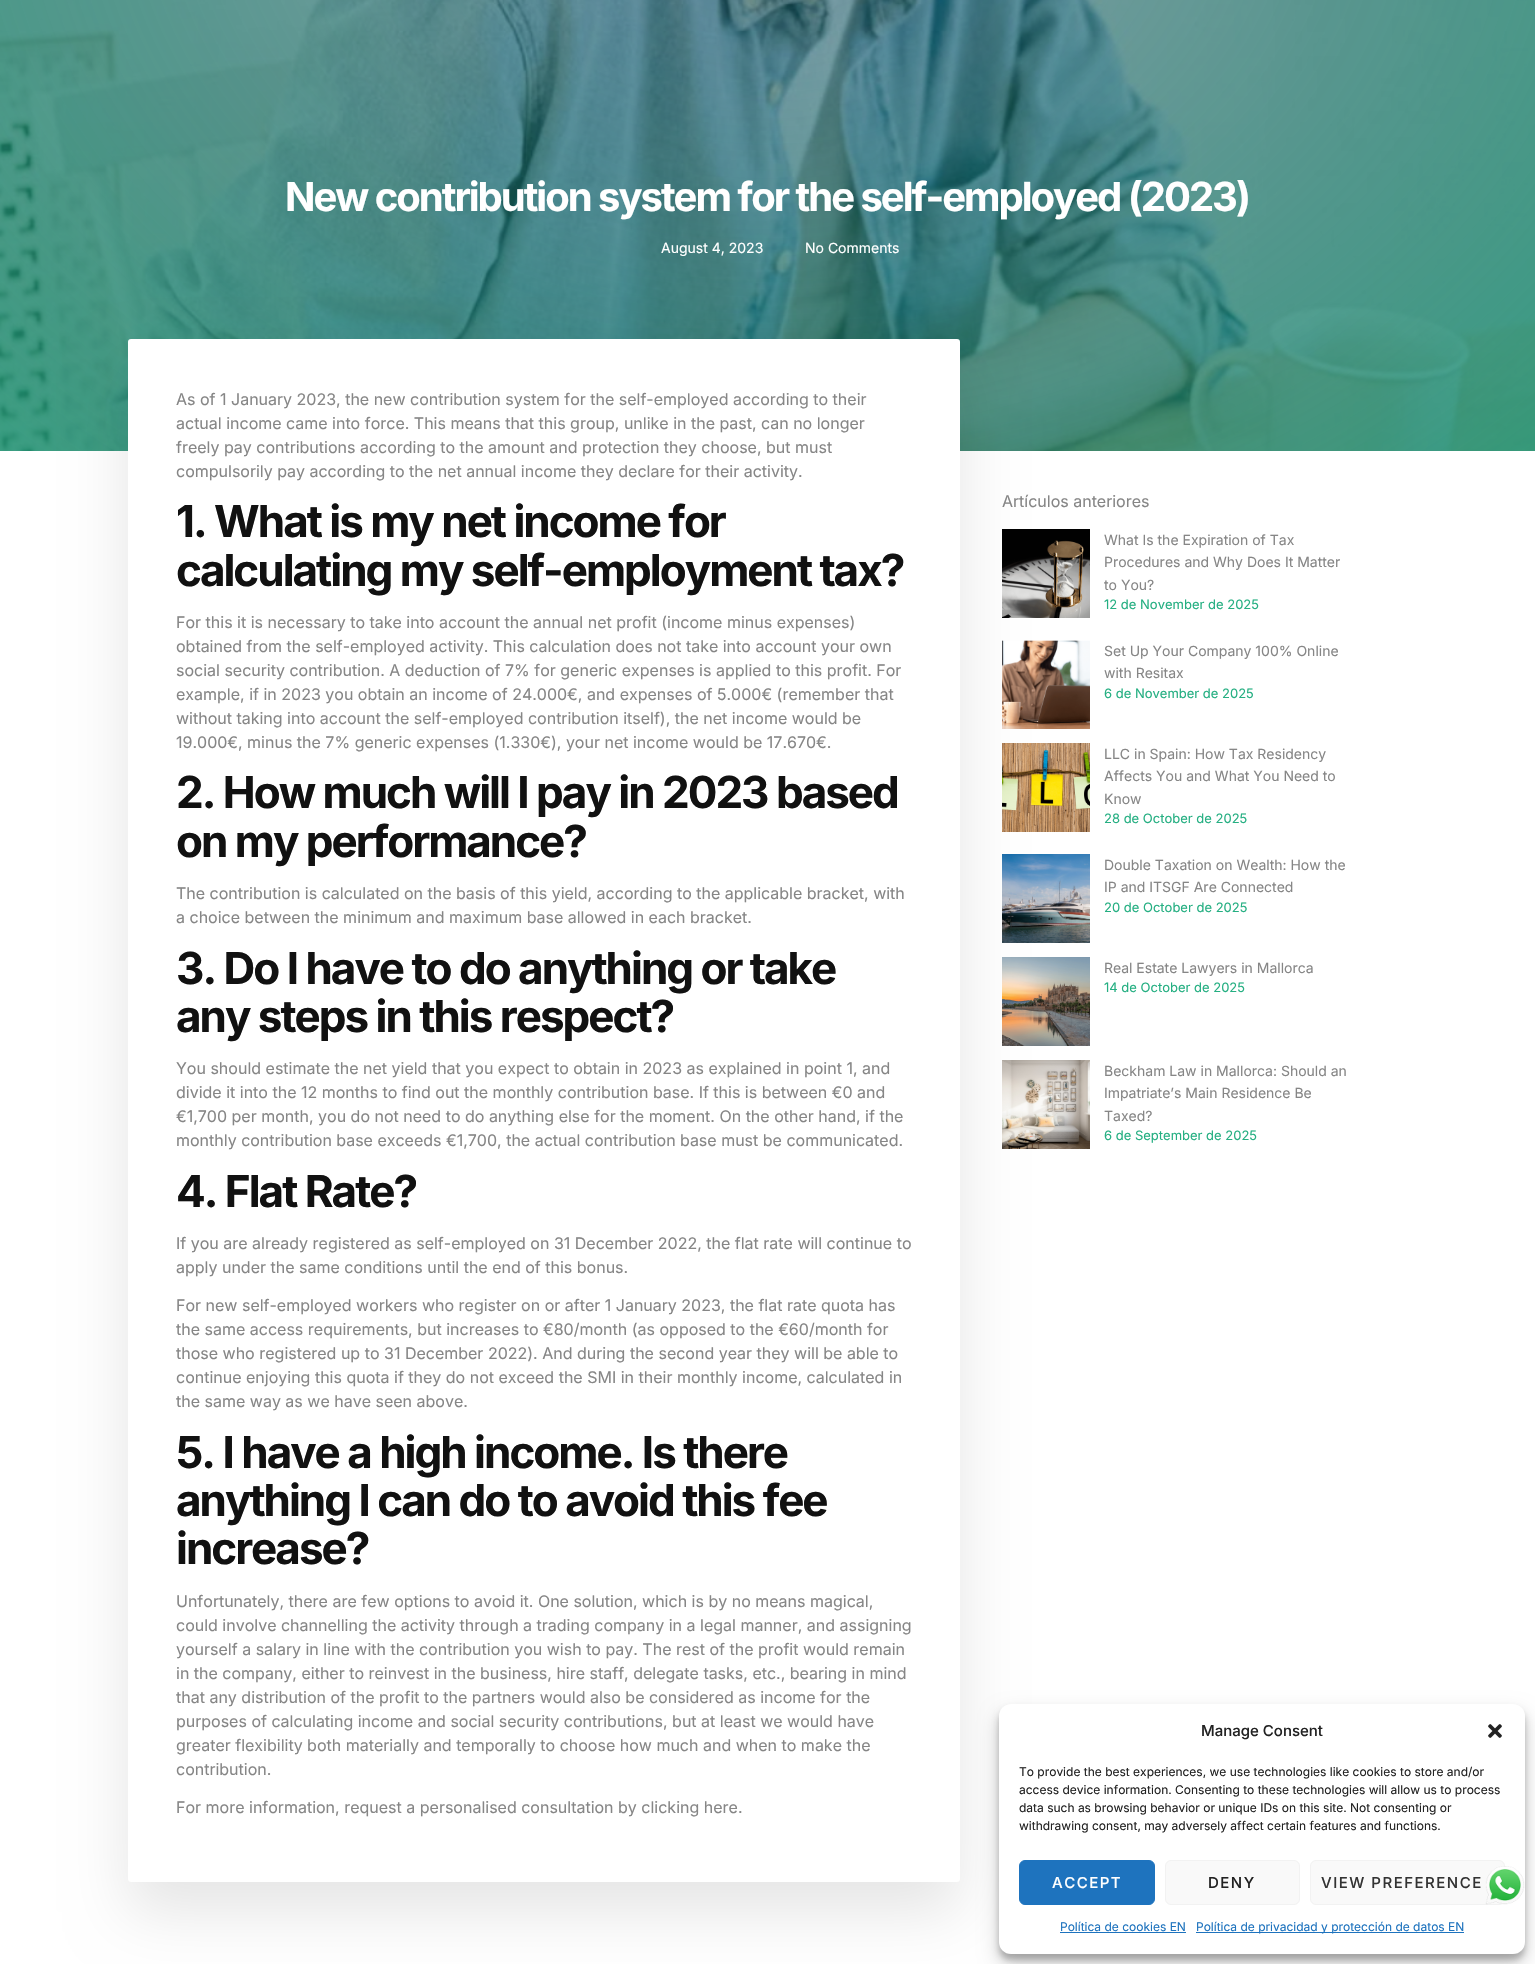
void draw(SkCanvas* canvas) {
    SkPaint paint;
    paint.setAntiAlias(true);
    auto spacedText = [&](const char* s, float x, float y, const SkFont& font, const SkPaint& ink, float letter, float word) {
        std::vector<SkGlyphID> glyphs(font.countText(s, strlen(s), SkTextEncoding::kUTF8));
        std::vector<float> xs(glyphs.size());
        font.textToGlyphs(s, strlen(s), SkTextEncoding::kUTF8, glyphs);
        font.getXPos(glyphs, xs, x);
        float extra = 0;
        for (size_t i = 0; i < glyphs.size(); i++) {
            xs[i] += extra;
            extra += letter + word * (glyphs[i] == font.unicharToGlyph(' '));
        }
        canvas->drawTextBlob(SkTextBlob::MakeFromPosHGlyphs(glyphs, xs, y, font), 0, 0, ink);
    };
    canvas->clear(0xFFFFFFFF);
    canvas->drawImageRect(SkImages::DeferredFromEncodedData(SkData::MakeFromFileName("img1.png")), SkRect::MakeXYWH(0, 0, 1535, 451), SkSamplingOptions());
    SkFont font1(fontMgr->matchFamilyStyle("Inter", SkFontStyle::Bold()), 40);
    font1.setSubpixel(true);
    paint.setColor(0xFFFFFFFF);
    spacedText("New contribution system for the self-employed (2023)", 285, 211, font1, paint, -2, 0);
    SkFont font2(fontMgr->matchFamilyStyle("Inter", SkFontStyle::Normal()), 14);
    font2.setSubpixel(true);
    canvas->drawString("August 4, 2023", 661, 253, font2, paint);
    canvas->drawString("No Comments", 805, 253, font2, paint);
    paint.setColor(0x1A000000);
    paint.setMaskFilter(SkMaskFilter::MakeBlur(kNormal_SkBlurStyle, 30));
    canvas->drawRoundRect(SkRect::MakeXYWH(128, 369, 832, 1543), 3, 3, paint);
    paint.setMaskFilter(nullptr);
    paint.setColor(0xFFFFFFFF);
    canvas->drawRoundRect(SkRect::MakeXYWH(128, 339, 832, 1543), 3, 3, paint);
    SkFont font3(fontMgr->matchFamilyStyle("Inter", SkFontStyle::Normal()), 16);
    font3.setSubpixel(true);
    paint.setColor(0xFF868686);
    canvas->drawString("As of 1 January 2023, the new contribution system for the self-employed according to their", 176, 405, font3, paint);
    canvas->drawString("actual income came into force. This means that this group, unlike in the past, can no longer", 176, 429, font3, paint);
    canvas->drawString("freely pay contributions according to the amount and protection they choose, but must", 176, 453, font3, paint);
    canvas->drawString("compulsorily pay according to the net annual income they declare for their activity.", 176, 477, font3, paint);
    SkFont font4(fontMgr->matchFamilyStyle("Inter", SkFontStyle::Bold()), 44);
    font4.setSubpixel(true);
    paint.setColor(0xFF111111);
    spacedText("1. What is my net income for", 176, 537, font4, paint, -2, 0);
    spacedText("calculating my self-employment tax?", 176, 586, font4, paint, -2, 0);
    paint.setColor(0xFF868686);
    canvas->drawString("For this it is necessary to take into account the annual net profit (income minus expenses)", 176, 628, font3, paint);
    canvas->drawString("obtained from the self-employed activity. This calculation does not take into account your own", 176, 652, font3, paint);
    canvas->drawString("social security contribution. A deduction of 7% for generic expenses is applied to this profit. For", 176, 676, font3, paint);
    canvas->drawString("example, if in 2023 you obtain an income of 24.000€, and expenses of 5.000€ (remember that", 176, 700, font3, paint);
    canvas->drawString("without taking into account the self-employed contribution itself), the net income would be", 176, 724, font3, paint);
    canvas->drawString("19.000€, minus the 7% generic expenses (1.330€), your net income would be 17.670€.", 176, 748, font3, paint);
    paint.setColor(0xFF111111);
    spacedText("2. How much will I pay in 2023 based", 176, 808, font4, paint, -2, 0);
    spacedText("on my performance?", 176, 857, font4, paint, -2, 0);
    paint.setColor(0xFF868686);
    canvas->drawString("The contribution is calculated on the basis of this yield, according to the applicable bracket, with", 176, 899, font3, paint);
    canvas->drawString("a choice between the minimum and maximum base allowed in each bracket.", 176, 923, font3, paint);
    paint.setColor(0xFF111111);
    spacedText("3. Do I have to do anything or take", 176, 984, font4, paint, -2, 0);
    spacedText("any steps in this respect?", 176, 1032, font4, paint, -2, 0);
    paint.setColor(0xFF868686);
    canvas->drawString("You should estimate the net yield that you expect to obtain in 2023 as explained in point 1, and", 176, 1074, font3, paint);
    canvas->drawString("divide it into the 12 months to find out the monthly contribution base. If this is between €0 and", 176, 1098, font3, paint);
    canvas->drawString("€1,700 per month, you do not need to do anything else for the moment. On the other hand, if the", 176, 1122, font3, paint);
    canvas->drawString("monthly contribution base exceeds €1,700, the actual contribution base must be communicated.", 176, 1146, font3, paint);
    paint.setColor(0xFF111111);
    spacedText("4. Flat Rate?", 176, 1207, font4, paint, -2, 0);
    paint.setColor(0xFF868686);
    canvas->drawString("If you are already registered as self-employed on 31 December 2022, the flat rate will continue to", 176, 1249, font3, paint);
    canvas->drawString("apply under the same conditions until the end of this bonus.", 176, 1273, font3, paint);
    canvas->drawString("For new self-employed workers who register on or after 1 January 2023, the flat rate quota has", 176, 1311, font3, paint);
    canvas->drawString("the same access requirements, but increases to €80/month (as opposed to the €60/month for", 176, 1335, font3, paint);
    canvas->drawString("those who registered up to 31 December 2022). And during the second year they will be able to", 176, 1359, font3, paint);
    canvas->drawString("continue enjoying this quota if they do not exceed the SMI in their monthly income, calculated in", 176, 1383, font3, paint);
    canvas->drawString("the same way as we have seen above.", 176, 1407, font3, paint);
    paint.setColor(0xFF111111);
    spacedText("5. I have a high income. Is there", 176, 1468, font4, paint, -2, 0);
    spacedText("anything I can do to avoid this fee", 176, 1516, font4, paint, -2, 0);
    spacedText("increase?", 176, 1564, font4, paint, -2, 0);
    paint.setColor(0xFF868686);
    canvas->drawString("Unfortunately, there are few options to avoid it. One solution, which is by no means magical,", 176, 1607, font3, paint);
    canvas->drawString("could involve channelling the activity through a trading company in a legal manner, and assigning", 176, 1631, font3, paint);
    canvas->drawString("yourself a salary in line with the contribution you wish to pay. The rest of the profit would remain", 176, 1655, font3, paint);
    canvas->drawString("in the company, either to reinvest in the business, hire staff, delegate tasks, etc., bearing in mind", 176, 1679, font3, paint);
    canvas->drawString("that any distribution of the profit to the partners would also be considered as income for the", 176, 1703, font3, paint);
    canvas->drawString("purposes of calculating income and social security contributions, but at least we would have", 176, 1727, font3, paint);
    canvas->drawString("greater flexibility both materially and temporally to choose how much and when to make the", 176, 1751, font3, paint);
    canvas->drawString("contribution.", 176, 1775, font3, paint);
    canvas->drawString("For more information, request a personalised consultation by clicking here.", 176, 1813, font3, paint);
    canvas->drawString("Artículos anteriores", 1002, 507, font3, paint);
    canvas->drawImageRect(SkImages::DeferredFromEncodedData(SkData::MakeFromFileName("img2.png")), SkRect::MakeXYWH(1002, 529, 88, 89), SkSamplingOptions());
    canvas->drawString("What Is the Expiration of Tax", 1104, 545, font2, paint);
    canvas->drawString("Procedures and Why Does It Matter", 1104, 567, font2, paint);
    canvas->drawString("to You?", 1104, 590, font2, paint);
    SkFont font5(fontMgr->matchFamilyStyle("Inter", SkFontStyle::Normal()), 13);
    font5.setSubpixel(true);
    paint.setColor(0xFF25AF82);
    canvas->drawString("12 de November de 2025", 1104, 609, font5, paint);
    canvas->drawImageRect(SkImages::DeferredFromEncodedData(SkData::MakeFromFileName("img3.png")), SkRect::MakeXYWH(1002, 640, 88, 89), SkSamplingOptions());
    paint.setColor(0xFF868686);
    canvas->drawString("Set Up Your Company 100% Online", 1104, 656, font2, paint);
    canvas->drawString("with Resitax", 1104, 678, font2, paint);
    paint.setColor(0xFF25AF82);
    canvas->drawString("6 de November de 2025", 1104, 698, font5, paint);
    canvas->drawImageRect(SkImages::DeferredFromEncodedData(SkData::MakeFromFileName("img4.png")), SkRect::MakeXYWH(1002, 743, 88, 89), SkSamplingOptions());
    paint.setColor(0xFF868686);
    canvas->drawString("LLC in Spain: How Tax Residency", 1104, 759, font2, paint);
    canvas->drawString("Affects You and What You Need to", 1104, 781, font2, paint);
    canvas->drawString("Know", 1104, 804, font2, paint);
    paint.setColor(0xFF25AF82);
    canvas->drawString("28 de October de 2025", 1104, 823, font5, paint);
    canvas->drawImageRect(SkImages::DeferredFromEncodedData(SkData::MakeFromFileName("img5.png")), SkRect::MakeXYWH(1002, 854, 88, 89), SkSamplingOptions());
    paint.setColor(0xFF868686);
    canvas->drawString("Double Taxation on Wealth: How the", 1104, 870, font2, paint);
    canvas->drawString("IP and ITSGF Are Connected", 1104, 892, font2, paint);
    paint.setColor(0xFF25AF82);
    canvas->drawString("20 de October de 2025", 1104, 912, font5, paint);
    canvas->drawImageRect(SkImages::DeferredFromEncodedData(SkData::MakeFromFileName("img6.png")), SkRect::MakeXYWH(1002, 957, 88, 89), SkSamplingOptions());
    paint.setColor(0xFF868686);
    canvas->drawString("Real Estate Lawyers in Mallorca", 1104, 973, font2, paint);
    paint.setColor(0xFF25AF82);
    canvas->drawString("14 de October de 2025", 1104, 992, font5, paint);
    canvas->drawImageRect(SkImages::DeferredFromEncodedData(SkData::MakeFromFileName("img7.png")), SkRect::MakeXYWH(1002, 1060, 88, 89), SkSamplingOptions());
    paint.setColor(0xFF868686);
    canvas->drawString("Beckham Law in Mallorca: Should an", 1104, 1076, font2, paint);
    canvas->drawString("Impatriate’s Main Residence Be", 1104, 1098, font2, paint);
    canvas->drawString("Taxed?", 1104, 1121, font2, paint);
    paint.setColor(0xFF25AF82);
    canvas->drawString("6 de September de 2025", 1104, 1140, font5, paint);
    paint.setColor(0x3B000000);
    paint.setMaskFilter(SkMaskFilter::MakeBlur(kNormal_SkBlurStyle, 3));
    canvas->drawRoundRect(SkRect::MakeXYWH(999, 1710, 526, 250), 12, 12, paint);
    paint.setMaskFilter(nullptr);
    paint.setColor(0x30000000);
    paint.setMaskFilter(SkMaskFilter::MakeBlur(kNormal_SkBlurStyle, 10));
    canvas->drawRoundRect(SkRect::MakeXYWH(999, 1714, 526, 250), 12, 12, paint);
    paint.setMaskFilter(nullptr);
    paint.setColor(0xFFFFFFFF);
    canvas->drawRoundRect(SkRect::MakeXYWH(999, 1704, 526, 250), 12, 12, paint);
    SkFont font6(fontMgr->matchFamilyStyle("Inter", SkFontStyle(500, SkFontStyle::kNormal_Width, SkFontStyle::kUpright_Slant)), 15);
    font6.setSubpixel(true);
    paint.setColor(0xFF222222);
    canvas->drawString("Manage Consent", 1201, 1736, font6, paint);
    canvas->drawImageRect(SkImages::DeferredFromEncodedData(SkData::MakeFromFileName("img8.png")), SkRect::MakeXYWH(1488, 1724, 14, 14), SkSamplingOptions());
    SkFont font7(fontMgr->matchFamilyStyle("Inter", SkFontStyle::Normal()), 12);
    font7.setSubpixel(true);
    canvas->drawString("To provide the best experiences, we use technologies like cookies to store and/or", 1019, 1776, font7, paint);
    canvas->drawString("access device information. Consenting to these technologies will allow us to process", 1019, 1794, font7, paint);
    canvas->drawString("data such as browsing behavior or unique IDs on this site. Not consenting or", 1019, 1812, font7, paint);
    canvas->drawString("withdrawing consent, may adversely affect certain features and functions.", 1019, 1830, font7, paint);
    paint.setColor(0xFF1E73BE);
    canvas->drawRoundRect(SkRect::MakeXYWH(1019.5f, 1860.5f, 135, 44), 5.5f, 5.5f, paint);
    paint.setStyle(SkPaint::kStroke_Style);
    paint.setStrokeWidth(1);
    canvas->drawRoundRect(SkRect::MakeXYWH(1019.5f, 1860.5f, 135, 44), 5.5f, 5.5f, paint);
    paint.setStyle(SkPaint::kFill_Style);
    paint.setColor(0xFFFFFFFF);
    spacedText("ACCEPT", 1052, 1888, font6, paint, 1.5f, 0);
    paint.setColor(0xFFF9F9F9);
    canvas->drawRoundRect(SkRect::MakeXYWH(1165.5f, 1860.5f, 134, 44), 5.5f, 5.5f, paint);
    paint.setStyle(SkPaint::kStroke_Style);
    paint.setColor(0xFFF2F2F2);
    canvas->drawRoundRect(SkRect::MakeXYWH(1165.5f, 1860.5f, 134, 44), 5.5f, 5.5f, paint);
    paint.setStyle(SkPaint::kFill_Style);
    paint.setColor(0xFF222222);
    spacedText("DENY", 1208, 1888, font6, paint, 1.5f, 0);
    paint.setColor(0xFFF9F9F9);
    canvas->drawRoundRect(SkRect::MakeXYWH(1310.5f, 1860.5f, 194, 44), 5.5f, 5.5f, paint);
    paint.setStyle(SkPaint::kStroke_Style);
    paint.setColor(0xFFF2F2F2);
    canvas->drawRoundRect(SkRect::MakeXYWH(1310.5f, 1860.5f, 194, 44), 5.5f, 5.5f, paint);
    paint.setStyle(SkPaint::kFill_Style);
    paint.setColor(0xFF333333);
    spacedText("VIEW PREFERENCE", 1321, 1888, font6, paint, 1.5f, 0);
    paint.setColor(0xFF1E73BE);
    canvas->drawString("Política de cookies EN", 1060, 1931, font7, paint);
    canvas->drawRect(SkRect::MakeXYWH(1060, 1932, 126, 1), paint);
    canvas->drawRect(SkRect::MakeXYWH(1196, 1932, 268, 1), paint);
    canvas->drawString("Política de privacidad y protección de datos EN", 1196, 1931, font7, paint);
    canvas->drawImageRect(SkImages::DeferredFromEncodedData(SkData::MakeFromFileName("img9.png")), SkRect::MakeXYWH(1485, 1866, 40, 39), SkSamplingOptions());
}
